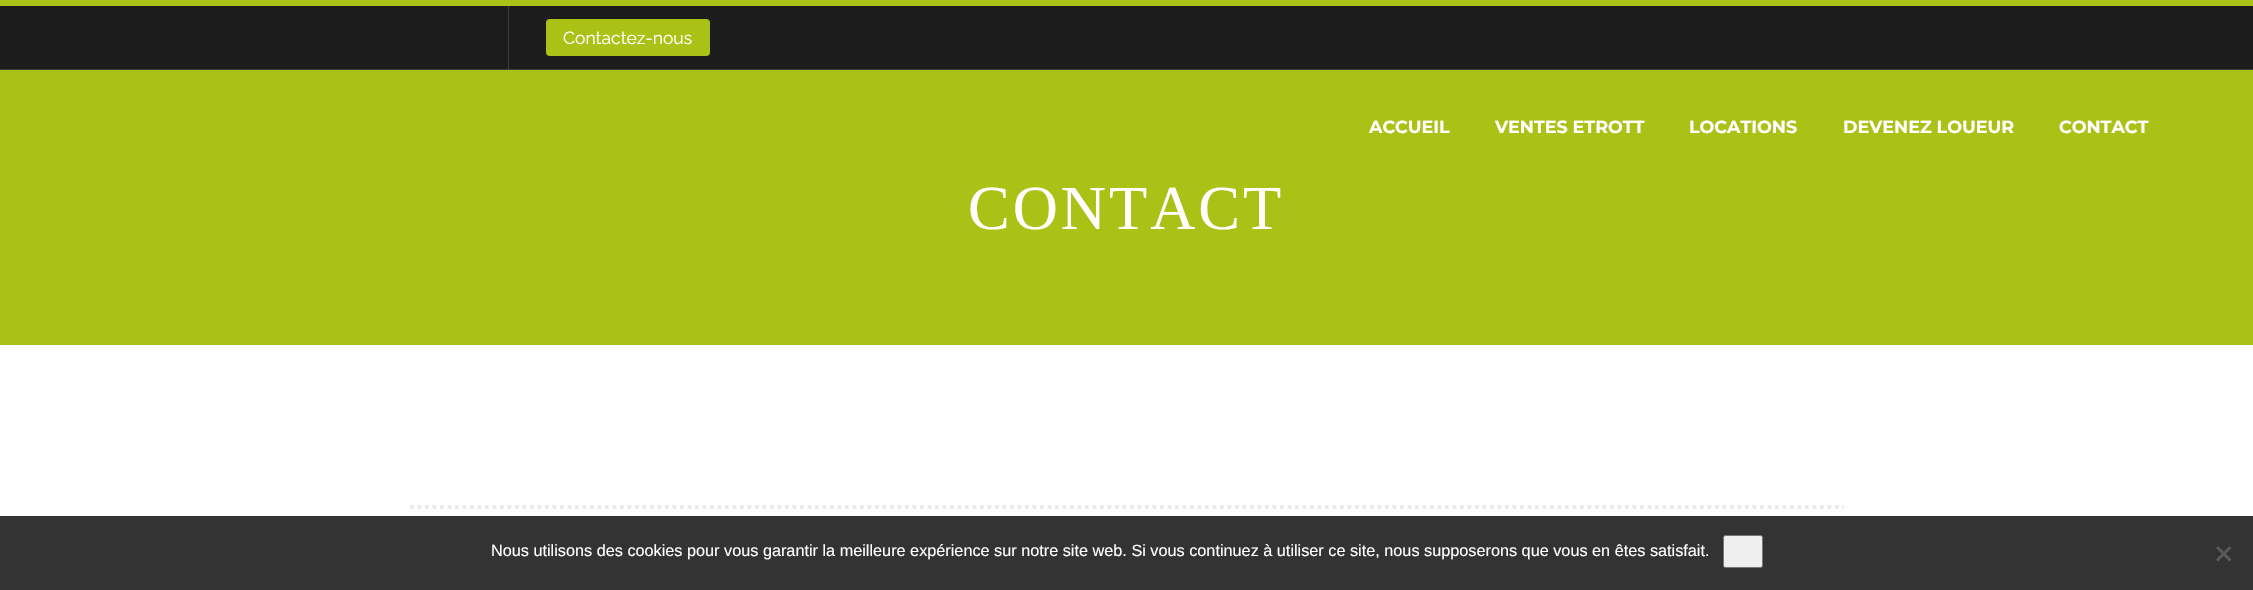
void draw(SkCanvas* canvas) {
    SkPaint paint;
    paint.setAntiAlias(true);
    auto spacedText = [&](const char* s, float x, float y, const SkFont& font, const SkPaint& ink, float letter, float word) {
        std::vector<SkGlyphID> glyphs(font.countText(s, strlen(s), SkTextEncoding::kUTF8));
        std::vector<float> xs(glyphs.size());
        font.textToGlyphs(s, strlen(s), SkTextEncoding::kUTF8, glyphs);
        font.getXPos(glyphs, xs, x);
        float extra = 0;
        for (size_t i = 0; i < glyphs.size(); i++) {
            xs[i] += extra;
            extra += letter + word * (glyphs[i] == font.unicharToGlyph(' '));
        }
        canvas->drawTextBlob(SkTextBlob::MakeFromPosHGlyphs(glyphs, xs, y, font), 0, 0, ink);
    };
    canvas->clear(0xFF1C1C1C);
    paint.setColor(0xFFAAC215);
    canvas->drawRect(SkRect::MakeXYWH(0, 0, 2253, 6), paint);
    paint.setColor(0xFF3D3D3D);
    canvas->drawRect(SkRect::MakeXYWH(0, 69, 2253, 1), paint);
    canvas->drawRect(SkRect::MakeXYWH(508, 6, 1, 63), paint);
    paint.setColor(0xFFAAC215);
    canvas->drawRoundRect(SkRect::MakeXYWH(546, 19, 164, 37), 4, 4, paint);
    SkFont font1(fontMgr->matchFamilyStyle("Raleway", SkFontStyle::Normal()), 17.5f);
    font1.setSubpixel(true);
    paint.setColor(0xFFFFFFFF);
    canvas->drawString("Contactez-nous", 563, 44, font1, paint);
    paint.setColor(0xFFAAC215);
    canvas->drawRect(SkRect::MakeXYWH(0, 70, 2253, 275), paint);
    SkFont font2(fontMgr->matchFamilyStyle("Montserrat", SkFontStyle::Bold()), 17.5f);
    font2.setSubpixel(true);
    paint.setColor(0xFFFFFFFF);
    canvas->drawString("ACCUEIL", 1369, 133, font2, paint);
    canvas->drawString("VENTES ETROTT", 1495, 133, font2, paint);
    canvas->drawString("LOCATIONS", 1689, 133, font2, paint);
    canvas->drawString("DEVENEZ LOUEUR", 1843, 133, font2, paint);
    canvas->drawString("CONTACT", 2059, 133, font2, paint);
    SkFont font3(fontMgr->matchFamilyStyle("Liberation Serif", SkFontStyle::Normal()), 62.5f);
    font3.setSubpixel(true);
    spacedText("CONTACT", 968, 229, font3, paint, 3, 0);
    canvas->drawRect(SkRect::MakeXYWH(0, 345, 2253, 245), paint);
    paint.setStyle(SkPaint::kStroke_Style);
    paint.setStrokeWidth(3.8f);
    paint.setColor(0xFFEBEBEB);
    paint.setPathEffect(SkDashPathEffect::Make({{3.75f, 3.75f}}, 0));
    canvas->drawPath(SkPathBuilder().moveTo(410, 507).lineTo(1844, 507).detach(), paint);
    paint.setPathEffect(nullptr);
    paint.setStyle(SkPaint::kFill_Style);
    paint.setColor(0xCC000000);
    canvas->drawRect(SkRect::MakeXYWH(0, 516, 2253, 74), paint);
    SkFont font4(fontMgr->matchFamilyStyle("Liberation Sans", SkFontStyle::Normal()), 16.25f);
    font4.setSubpixel(true);
    paint.setColor(0xFFFFFFFF);
    canvas->drawString("Nous utilisons des cookies pour vous garantir la meilleure expérience sur notre site web. Si vous continuez à utiliser ce site, nous supposerons que vous en êtes satisfait.", 491, 556, font4, paint);
    paint.setColor(0xFFEFEFEF);
    canvas->drawRoundRect(SkRect::MakeXYWH(1723.5f, 535.5f, 39, 32), 2, 2, paint);
    paint.setStyle(SkPaint::kStroke_Style);
    paint.setStrokeWidth(1);
    paint.setColor(0xFF767676);
    canvas->drawRoundRect(SkRect::MakeXYWH(1723.5f, 535.5f, 39, 32), 2, 2, paint);
    paint.setStyle(SkPaint::kFill_Style);
    paint.setColor(0xFF5A5A5A);
    canvas->drawPath(SkPathBuilder().moveTo(2229.5f, 546).lineTo(2231.5f, 548).lineTo(2218, 561.5f).lineTo(2216, 559.5f).close().detach(), paint);
    canvas->drawPath(SkPathBuilder().moveTo(2216, 548).lineTo(2218, 546).lineTo(2231.5f, 559.5f).lineTo(2229.5f, 561.5f).close().detach(), paint);
}
